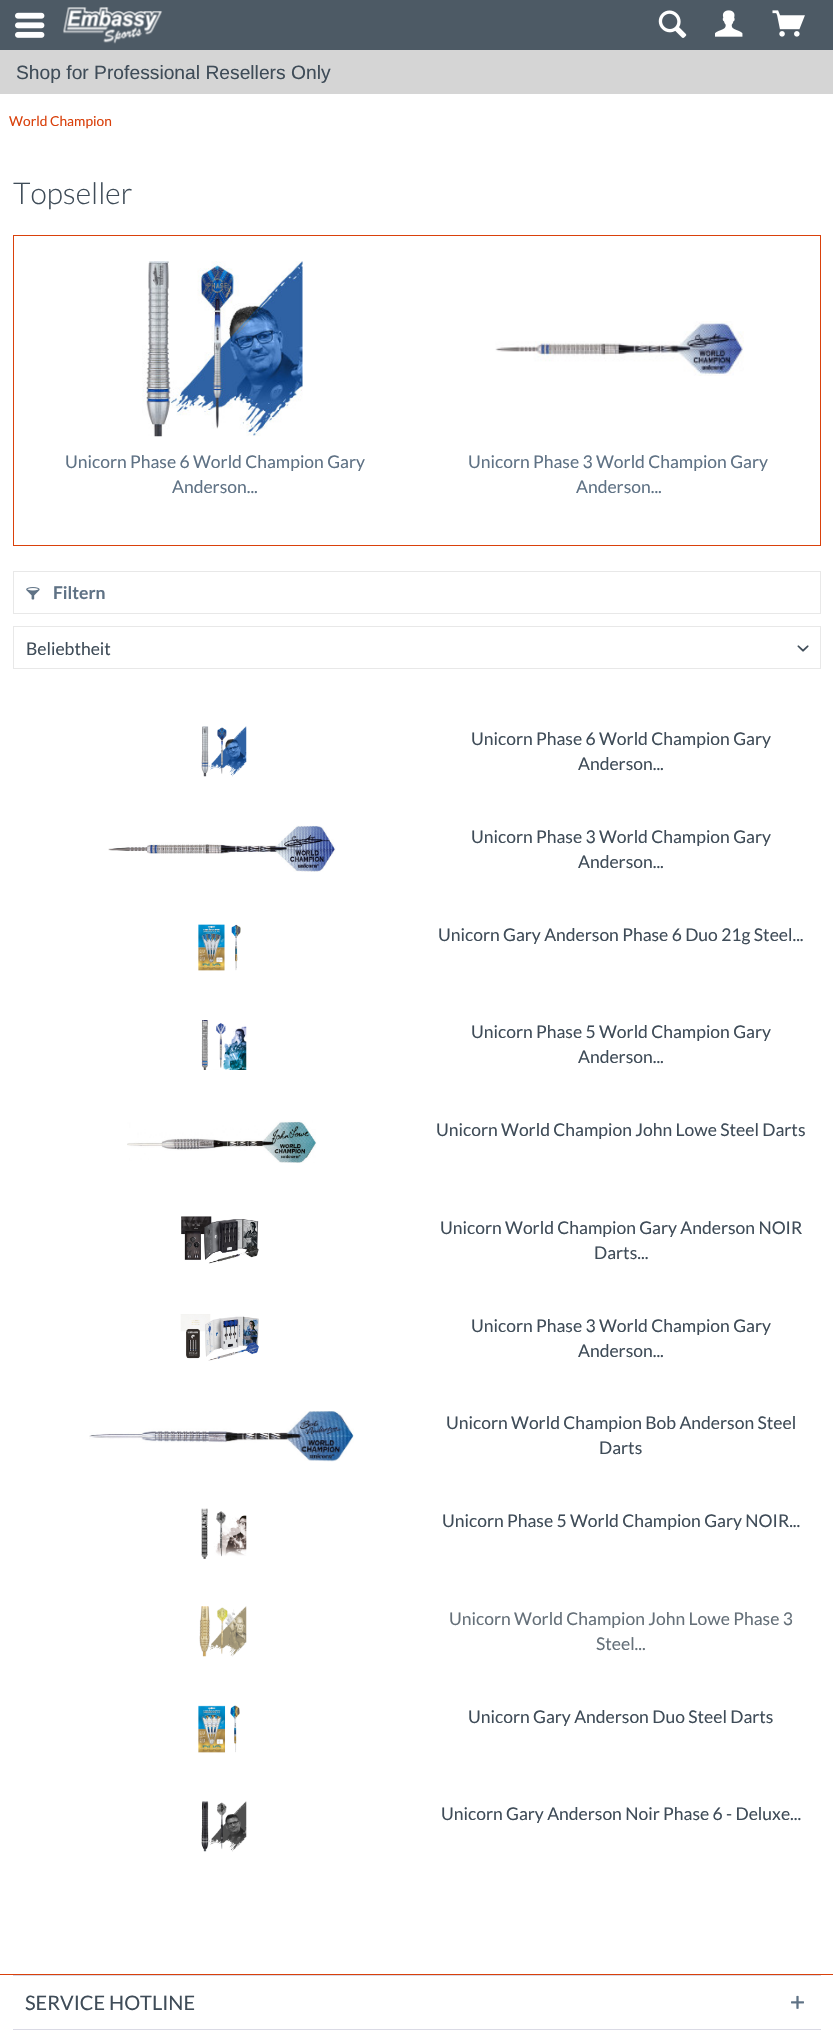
void draw(SkCanvas* canvas) {
    SkPaint paint;
    paint.setAntiAlias(true);
    canvas->clear(0xFFFFFFFF);
    paint.setColor(0xFF4D5A65);
    canvas->drawRect(SkRect::MakeXYWH(0, 0, 833, 50), paint);
    canvas->drawImageRect(SkImages::DeferredFromEncodedData(SkData::MakeFromFileName("img1.png")), SkRect::MakeXYWH(63, 7, 100, 37), SkSamplingOptions());
    canvas->drawImageRect(SkImages::DeferredFromEncodedData(SkData::MakeFromFileName("img2.png")), SkRect::MakeXYWH(15, 12, 30, 26), SkSamplingOptions());
    canvas->drawImageRect(SkImages::DeferredFromEncodedData(SkData::MakeFromFileName("img3.png")), SkRect::MakeXYWH(658, 10, 29, 28), SkSamplingOptions());
    canvas->drawImageRect(SkImages::DeferredFromEncodedData(SkData::MakeFromFileName("img4.png")), SkRect::MakeXYWH(715, 10, 28, 27), SkSamplingOptions());
    canvas->drawImageRect(SkImages::DeferredFromEncodedData(SkData::MakeFromFileName("img5.png")), SkRect::MakeXYWH(772, 10, 33, 27), SkSamplingOptions());
    paint.setColor(0xFFD5D5D5);
    canvas->drawRect(SkRect::MakeXYWH(0, 50, 833, 44), paint);
    SkFont font1(fontMgr->matchFamilyStyle("Liberation Sans", SkFontStyle::Normal()), 19.25f);
    font1.setSubpixel(true);
    paint.setColor(0xFF3F4C58);
    canvas->drawString("Shop for Professional Resellers Only", 16, 79, font1, paint);
    SkFont font2(fontMgr->matchFamilyStyle("Lato", SkFontStyle::Normal()), 13.75f);
    font2.setSubpixel(true);
    paint.setColor(0xFFD9400B);
    canvas->drawString("World Champion", 9, 126, font2, paint);
    SkFont font3(fontMgr->matchFamilyStyle("Lato", SkFontStyle(300, SkFontStyle::kNormal_Width, SkFontStyle::kUpright_Slant)), 30);
    font3.setSubpixel(true);
    paint.setColor(0xFF3F4C58);
    canvas->drawString("Topseller", 13, 204, font3, paint);
    paint.setStyle(SkPaint::kStroke_Style);
    paint.setStrokeWidth(1);
    paint.setColor(0xFFDA410B);
    canvas->drawRect(SkRect::MakeXYWH(13.5f, 235.5f, 807, 310), paint);
    canvas->drawImageRect(SkImages::DeferredFromEncodedData(SkData::MakeFromFileName("img6.png")), SkRect::MakeXYWH(142, 261, 161, 176), SkSamplingOptions());
    SkFont font4(fontMgr->matchFamilyStyle("Lato", SkFontStyle::Normal()), 17.5f);
    font4.setSubpixel(true);
    paint.setStyle(SkPaint::kFill_Style);
    paint.setColor(0xFF5F7285);
    canvas->drawString("Unicorn Phase 6 World Champion Gary", 65, 468, font4, paint);
    canvas->drawString("Anderson...", 172, 493, font4, paint);
    canvas->drawImageRect(SkImages::DeferredFromEncodedData(SkData::MakeFromFileName("img7.png")), SkRect::MakeXYWH(495, 321, 249, 55), SkSamplingOptions());
    canvas->drawString("Unicorn Phase 3 World Champion Gary", 468, 468, font4, paint);
    canvas->drawString("Anderson...", 576, 493, font4, paint);
    paint.setStyle(SkPaint::kStroke_Style);
    paint.setColor(0xFFE8E8E8);
    canvas->drawRect(SkRect::MakeXYWH(13.5f, 571.5f, 807, 42), paint);
    canvas->drawImageRect(SkImages::DeferredFromEncodedData(SkData::MakeFromFileName("img8.png")), SkRect::MakeXYWH(26, 587, 14, 13), SkSamplingOptions());
    SkFont font5(fontMgr->matchFamilyStyle("Lato", SkFontStyle::Bold()), 17.5f);
    font5.setSubpixel(true);
    paint.setStyle(SkPaint::kFill_Style);
    paint.setColor(0xFF5F7285);
    canvas->drawString("Filtern", 53, 599, font5, paint);
    paint.setStyle(SkPaint::kStroke_Style);
    paint.setColor(0xFFE8E8E8);
    canvas->drawRect(SkRect::MakeXYWH(13.5f, 626.5f, 807, 42), paint);
    paint.setStyle(SkPaint::kFill_Style);
    paint.setColor(0xFF3F4C58);
    canvas->drawString("Beliebtheit", 26, 655, font4, paint);
    canvas->drawImageRect(SkImages::DeferredFromEncodedData(SkData::MakeFromFileName("img9.png")), SkRect::MakeXYWH(797, 645, 12, 7), SkSamplingOptions());
    canvas->drawImageRect(SkImages::DeferredFromEncodedData(SkData::MakeFromFileName("img10.png")), SkRect::MakeXYWH(201, 726, 46, 51), SkSamplingOptions());
    canvas->drawString("Unicorn Phase 6 World Champion Gary", 471, 745, font4, paint);
    canvas->drawString("Anderson...", 578, 770, font4, paint);
    canvas->drawImageRect(SkImages::DeferredFromEncodedData(SkData::MakeFromFileName("img11.png")), SkRect::MakeXYWH(108, 825, 228, 47), SkSamplingOptions());
    canvas->drawString("Unicorn Phase 3 World Champion Gary", 471, 843, font4, paint);
    canvas->drawString("Anderson...", 578, 868, font4, paint);
    canvas->drawImageRect(SkImages::DeferredFromEncodedData(SkData::MakeFromFileName("img12.png")), SkRect::MakeXYWH(198, 924, 43, 47), SkSamplingOptions());
    canvas->drawString("Unicorn Gary Anderson Phase 6 Duo 21g Steel...", 438, 941, font4, paint);
    canvas->drawImageRect(SkImages::DeferredFromEncodedData(SkData::MakeFromFileName("img13.png")), SkRect::MakeXYWH(201, 1020, 46, 50), SkSamplingOptions());
    canvas->drawString("Unicorn Phase 5 World Champion Gary", 471, 1038, font4, paint);
    canvas->drawString("Anderson...", 578, 1063, font4, paint);
    canvas->drawImageRect(SkImages::DeferredFromEncodedData(SkData::MakeFromFileName("img14.png")), SkRect::MakeXYWH(127, 1120, 190, 43), SkSamplingOptions());
    canvas->drawString("Unicorn World Champion John Lowe Steel Darts", 436, 1136, font4, paint);
    canvas->drawImageRect(SkImages::DeferredFromEncodedData(SkData::MakeFromFileName("img15.png")), SkRect::MakeXYWH(181, 1216, 78, 48), SkSamplingOptions());
    canvas->drawString("Unicorn World Champion Gary Anderson NOIR", 440, 1234, font4, paint);
    canvas->drawString("Darts...", 594, 1259, font4, paint);
    canvas->drawImageRect(SkImages::DeferredFromEncodedData(SkData::MakeFromFileName("img16.png")), SkRect::MakeXYWH(180, 1314, 79, 47), SkSamplingOptions());
    canvas->drawString("Unicorn Phase 3 World Champion Gary", 471, 1332, font4, paint);
    canvas->drawString("Anderson...", 578, 1357, font4, paint);
    canvas->drawImageRect(SkImages::DeferredFromEncodedData(SkData::MakeFromFileName("img17.png")), SkRect::MakeXYWH(89, 1411, 265, 51), SkSamplingOptions());
    canvas->drawString("Unicorn World Champion Bob Anderson Steel", 446, 1429, font4, paint);
    canvas->drawString("Darts", 599, 1454, font4, paint);
    canvas->drawImageRect(SkImages::DeferredFromEncodedData(SkData::MakeFromFileName("img18.png")), SkRect::MakeXYWH(201, 1508, 46, 51), SkSamplingOptions());
    canvas->drawString("Unicorn Phase 5 World Champion Gary NOIR...", 442, 1527, font4, paint);
    canvas->drawImageRect(SkImages::DeferredFromEncodedData(SkData::MakeFromFileName("img19.png")), SkRect::MakeXYWH(199, 1606, 48, 51), SkSamplingOptions());
    paint.setColor(0xFF657079);
    canvas->drawString("Unicorn World Champion John Lowe Phase 3", 449, 1625, font4, paint);
    canvas->drawString("Steel...", 596, 1650, font4, paint);
    canvas->drawImageRect(SkImages::DeferredFromEncodedData(SkData::MakeFromFileName("img20.png")), SkRect::MakeXYWH(198, 1705, 42, 48), SkSamplingOptions());
    paint.setColor(0xFF3F4C58);
    canvas->drawString("Unicorn Gary Anderson Duo Steel Darts", 468, 1723, font4, paint);
    canvas->drawImageRect(SkImages::DeferredFromEncodedData(SkData::MakeFromFileName("img21.png")), SkRect::MakeXYWH(201, 1801, 46, 51), SkSamplingOptions());
    canvas->drawString("Unicorn Gary Anderson Noir Phase 6 - Deluxe...", 441, 1820, font4, paint);
    paint.setColor(0xFFD9400B);
    canvas->drawRect(SkRect::MakeXYWH(0, 1974, 833, 1), paint);
    paint.setColor(0xFFDADAE5);
    canvas->drawRect(SkRect::MakeXYWH(13, 1975, 808, 1), paint);
    SkFont font6(fontMgr->matchFamilyStyle("Lato", SkFontStyle::Normal()), 20);
    font6.setSubpixel(true);
    paint.setColor(0xFF3F4C58);
    canvas->drawString("SERVICE HOTLINE", 25, 2010, font6, paint);
    canvas->drawImageRect(SkImages::DeferredFromEncodedData(SkData::MakeFromFileName("img22.png")), SkRect::MakeXYWH(791, 1995, 13, 14), SkSamplingOptions());
    paint.setColor(0xFFDADAE5);
    canvas->drawRect(SkRect::MakeXYWH(13, 2029, 808, 1), paint);
}
